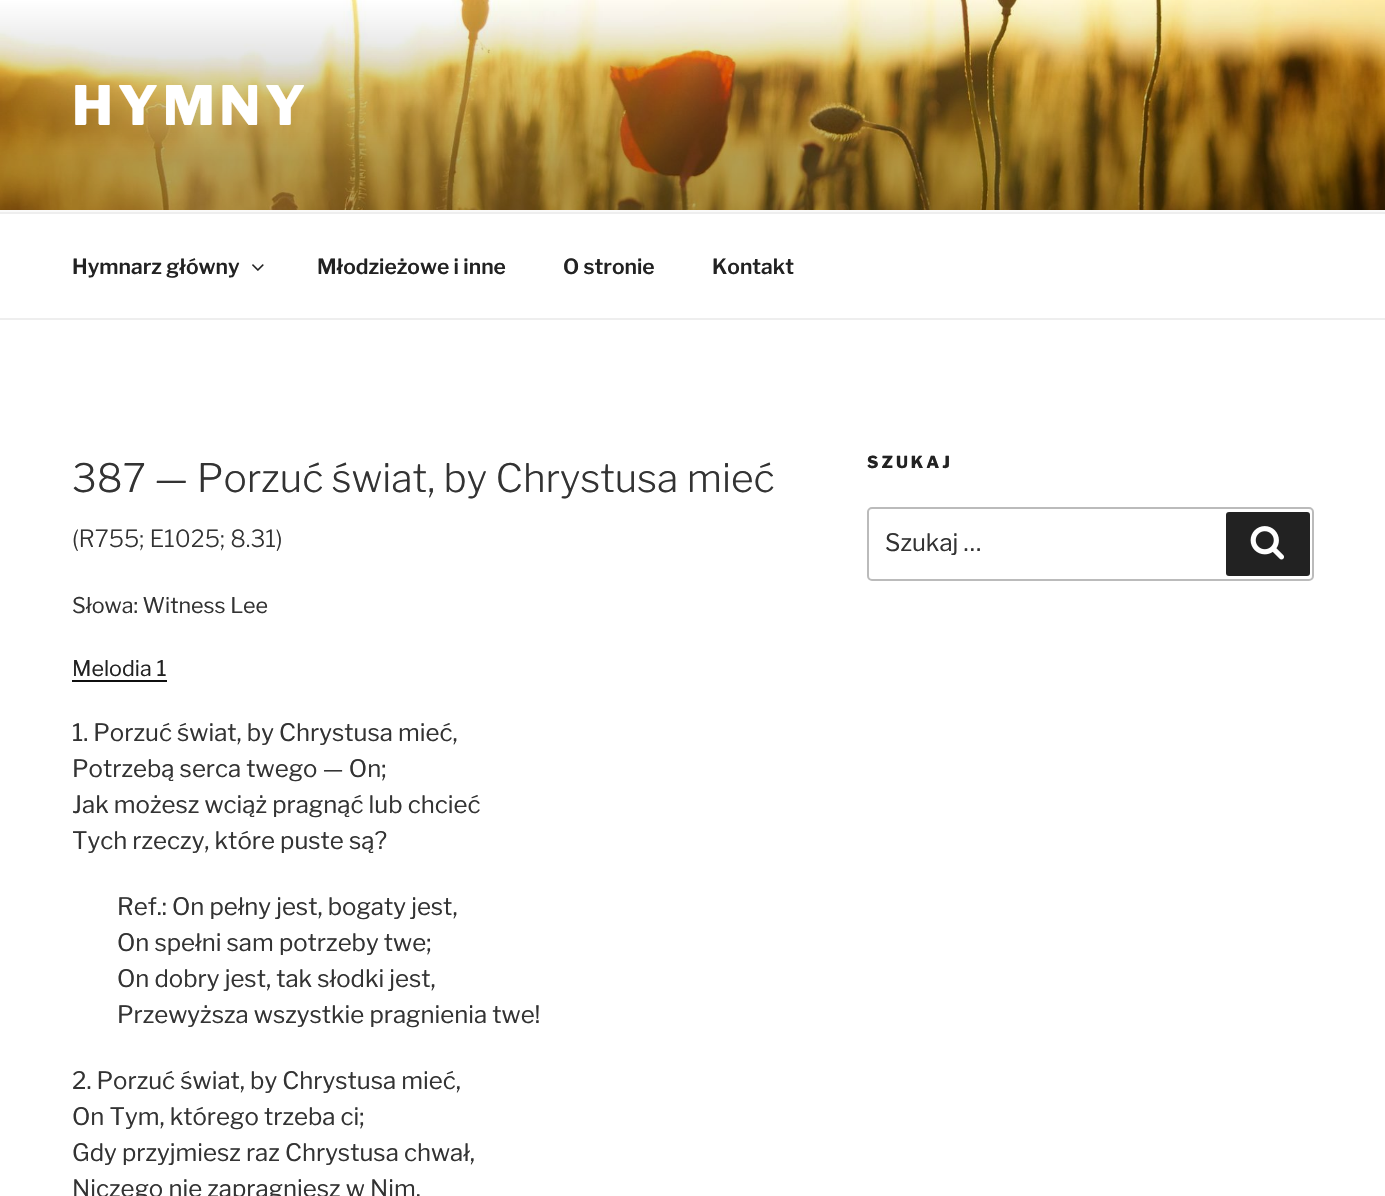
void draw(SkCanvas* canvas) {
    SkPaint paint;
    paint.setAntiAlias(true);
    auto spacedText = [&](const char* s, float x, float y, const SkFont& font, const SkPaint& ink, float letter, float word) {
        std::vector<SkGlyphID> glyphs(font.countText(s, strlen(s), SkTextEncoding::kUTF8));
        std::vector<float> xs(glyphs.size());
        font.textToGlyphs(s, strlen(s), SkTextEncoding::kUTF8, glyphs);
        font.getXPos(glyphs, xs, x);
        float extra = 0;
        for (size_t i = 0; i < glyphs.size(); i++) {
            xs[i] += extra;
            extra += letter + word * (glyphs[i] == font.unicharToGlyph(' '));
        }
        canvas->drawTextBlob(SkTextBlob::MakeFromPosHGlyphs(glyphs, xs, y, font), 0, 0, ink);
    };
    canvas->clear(0xFFFFFFFF);
    paint.setColor(0xFFFAFAFA);
    canvas->drawRect(SkRect::MakeXYWH(0, 210, 1385, 2), paint);
    canvas->drawImageRect(SkImages::DeferredFromEncodedData(SkData::MakeFromFileName("img1.png")), SkRect::MakeXYWH(0, 0, 1385, 210), SkSamplingOptions());
    SkFont font1(fontMgr->matchFamilyStyle("Libre Franklin", SkFontStyle(800, SkFontStyle::kNormal_Width, SkFontStyle::kUpright_Slant)), 54);
    font1.setSubpixel(true);
    paint.setColor(0xFFFFFFFF);
    spacedText("HYMNY", 72, 125, font1, paint, 4.5f, 0);
    paint.setColor(0xFFEEEEEE);
    canvas->drawRect(SkRect::MakeXYWH(0, 212, 1385, 2), paint);
    canvas->drawRect(SkRect::MakeXYWH(0, 318, 1385, 2), paint);
    SkFont font2(fontMgr->matchFamilyStyle("Libre Franklin", SkFontStyle(600, SkFontStyle::kNormal_Width, SkFontStyle::kUpright_Slant)), 21);
    font2.setSubpixel(true);
    paint.setColor(0xFF222222);
    canvas->drawString("Hymnarz główny", 72, 274, font2, paint);
    canvas->drawImageRect(SkImages::DeferredFromEncodedData(SkData::MakeFromFileName("img2.png")), SkRect::MakeXYWH(252, 264, 12, 7), SkSamplingOptions());
    canvas->drawString("Młodzieżowe i inne", 317, 274, font2, paint);
    canvas->drawString("O stronie", 563, 274, font2, paint);
    canvas->drawString("Kontakt", 712, 274, font2, paint);
    SkFont font3(fontMgr->matchFamilyStyle("Libre Franklin", SkFontStyle(300, SkFontStyle::kNormal_Width, SkFontStyle::kUpright_Slant)), 39);
    font3.setSubpixel(true);
    paint.setColor(0xFF333333);
    canvas->drawString("387 — Porzuć świat, by Chrystusa mieć", 72, 492, font3, paint);
    SkFont font4(fontMgr->matchFamilyStyle("Libre Franklin", SkFontStyle(300, SkFontStyle::kNormal_Width, SkFontStyle::kUpright_Slant)), 23.5f);
    font4.setSubpixel(true);
    canvas->drawString("(R755; E1025; 8.31)", 72, 547, font4, paint);
    SkFont font5(fontMgr->matchFamilyStyle("Libre Franklin", SkFontStyle::Normal()), 21.5f);
    font5.setSubpixel(true);
    canvas->drawString("Słowa: Witness Lee", 72, 613, font5, paint);
    paint.setColor(0xFF222222);
    canvas->drawString("Melodia 1", 72, 676, font5, paint);
    paint.setColor(0xFF0F0F0F);
    canvas->drawRect(SkRect::MakeXYWH(72, 680, 95, 2), paint);
    SkFont font6(fontMgr->matchFamilyStyle("Libre Franklin", SkFontStyle::Normal()), 24);
    font6.setSubpixel(true);
    paint.setColor(0xFF333333);
    canvas->drawString("1. Porzuć świat, by Chrystusa mieć,", 72, 741, font6, paint);
    canvas->drawString("Potrzebą serca twego — On;", 72, 777, font6, paint);
    canvas->drawString("Jak możesz wciąż pragnąć lub chcieć", 72, 813, font6, paint);
    canvas->drawString("Tych rzeczy, które puste są?", 72, 849, font6, paint);
    canvas->drawString("Ref.: On pełny jest, bogaty jest,", 117, 915, font6, paint);
    canvas->drawString("On spełni sam potrzeby twe;", 117, 951, font6, paint);
    canvas->drawString("On dobry jest, tak słodki jest,", 117, 987, font6, paint);
    canvas->drawString("Przewyższa wszystkie pragnienia twe!", 117, 1023, font6, paint);
    canvas->drawString("2. Porzuć świat, by Chrystusa mieć,", 72, 1089, font6, paint);
    canvas->drawString("On Tym, którego trzeba ci;", 72, 1125, font6, paint);
    canvas->drawString("Gdy przyjmiesz raz Chrystusa chwał,", 72, 1161, font6, paint);
    canvas->drawString("Niczego nie zapragniesz w Nim.", 72, 1197, font6, paint);
    SkFont font7(fontMgr->matchFamilyStyle("Libre Franklin", SkFontStyle(800, SkFontStyle::kNormal_Width, SkFontStyle::kUpright_Slant)), 16.5f);
    font7.setSubpixel(true);
    paint.setColor(0xFF222222);
    spacedText("SZUKAJ", 867, 468, font7, paint, 3, 0);
    paint.setStyle(SkPaint::kStroke_Style);
    paint.setStrokeWidth(2);
    paint.setColor(0xFFBBBBBB);
    canvas->drawRoundRect(SkRect::MakeXYWH(868, 508, 445, 72), 4, 4, paint);
    paint.setStyle(SkPaint::kFill_Style);
    paint.setColor(0xFF333333);
    canvas->drawString("Szukaj …", 885, 551, font6, paint);
    paint.setColor(0xFF222222);
    canvas->drawRoundRect(SkRect::MakeXYWH(1226, 512, 84, 64), 3, 3, paint);
    canvas->drawImageRect(SkImages::DeferredFromEncodedData(SkData::MakeFromFileName("img3.png")), SkRect::MakeXYWH(1250, 526, 34, 34), SkSamplingOptions());
}
